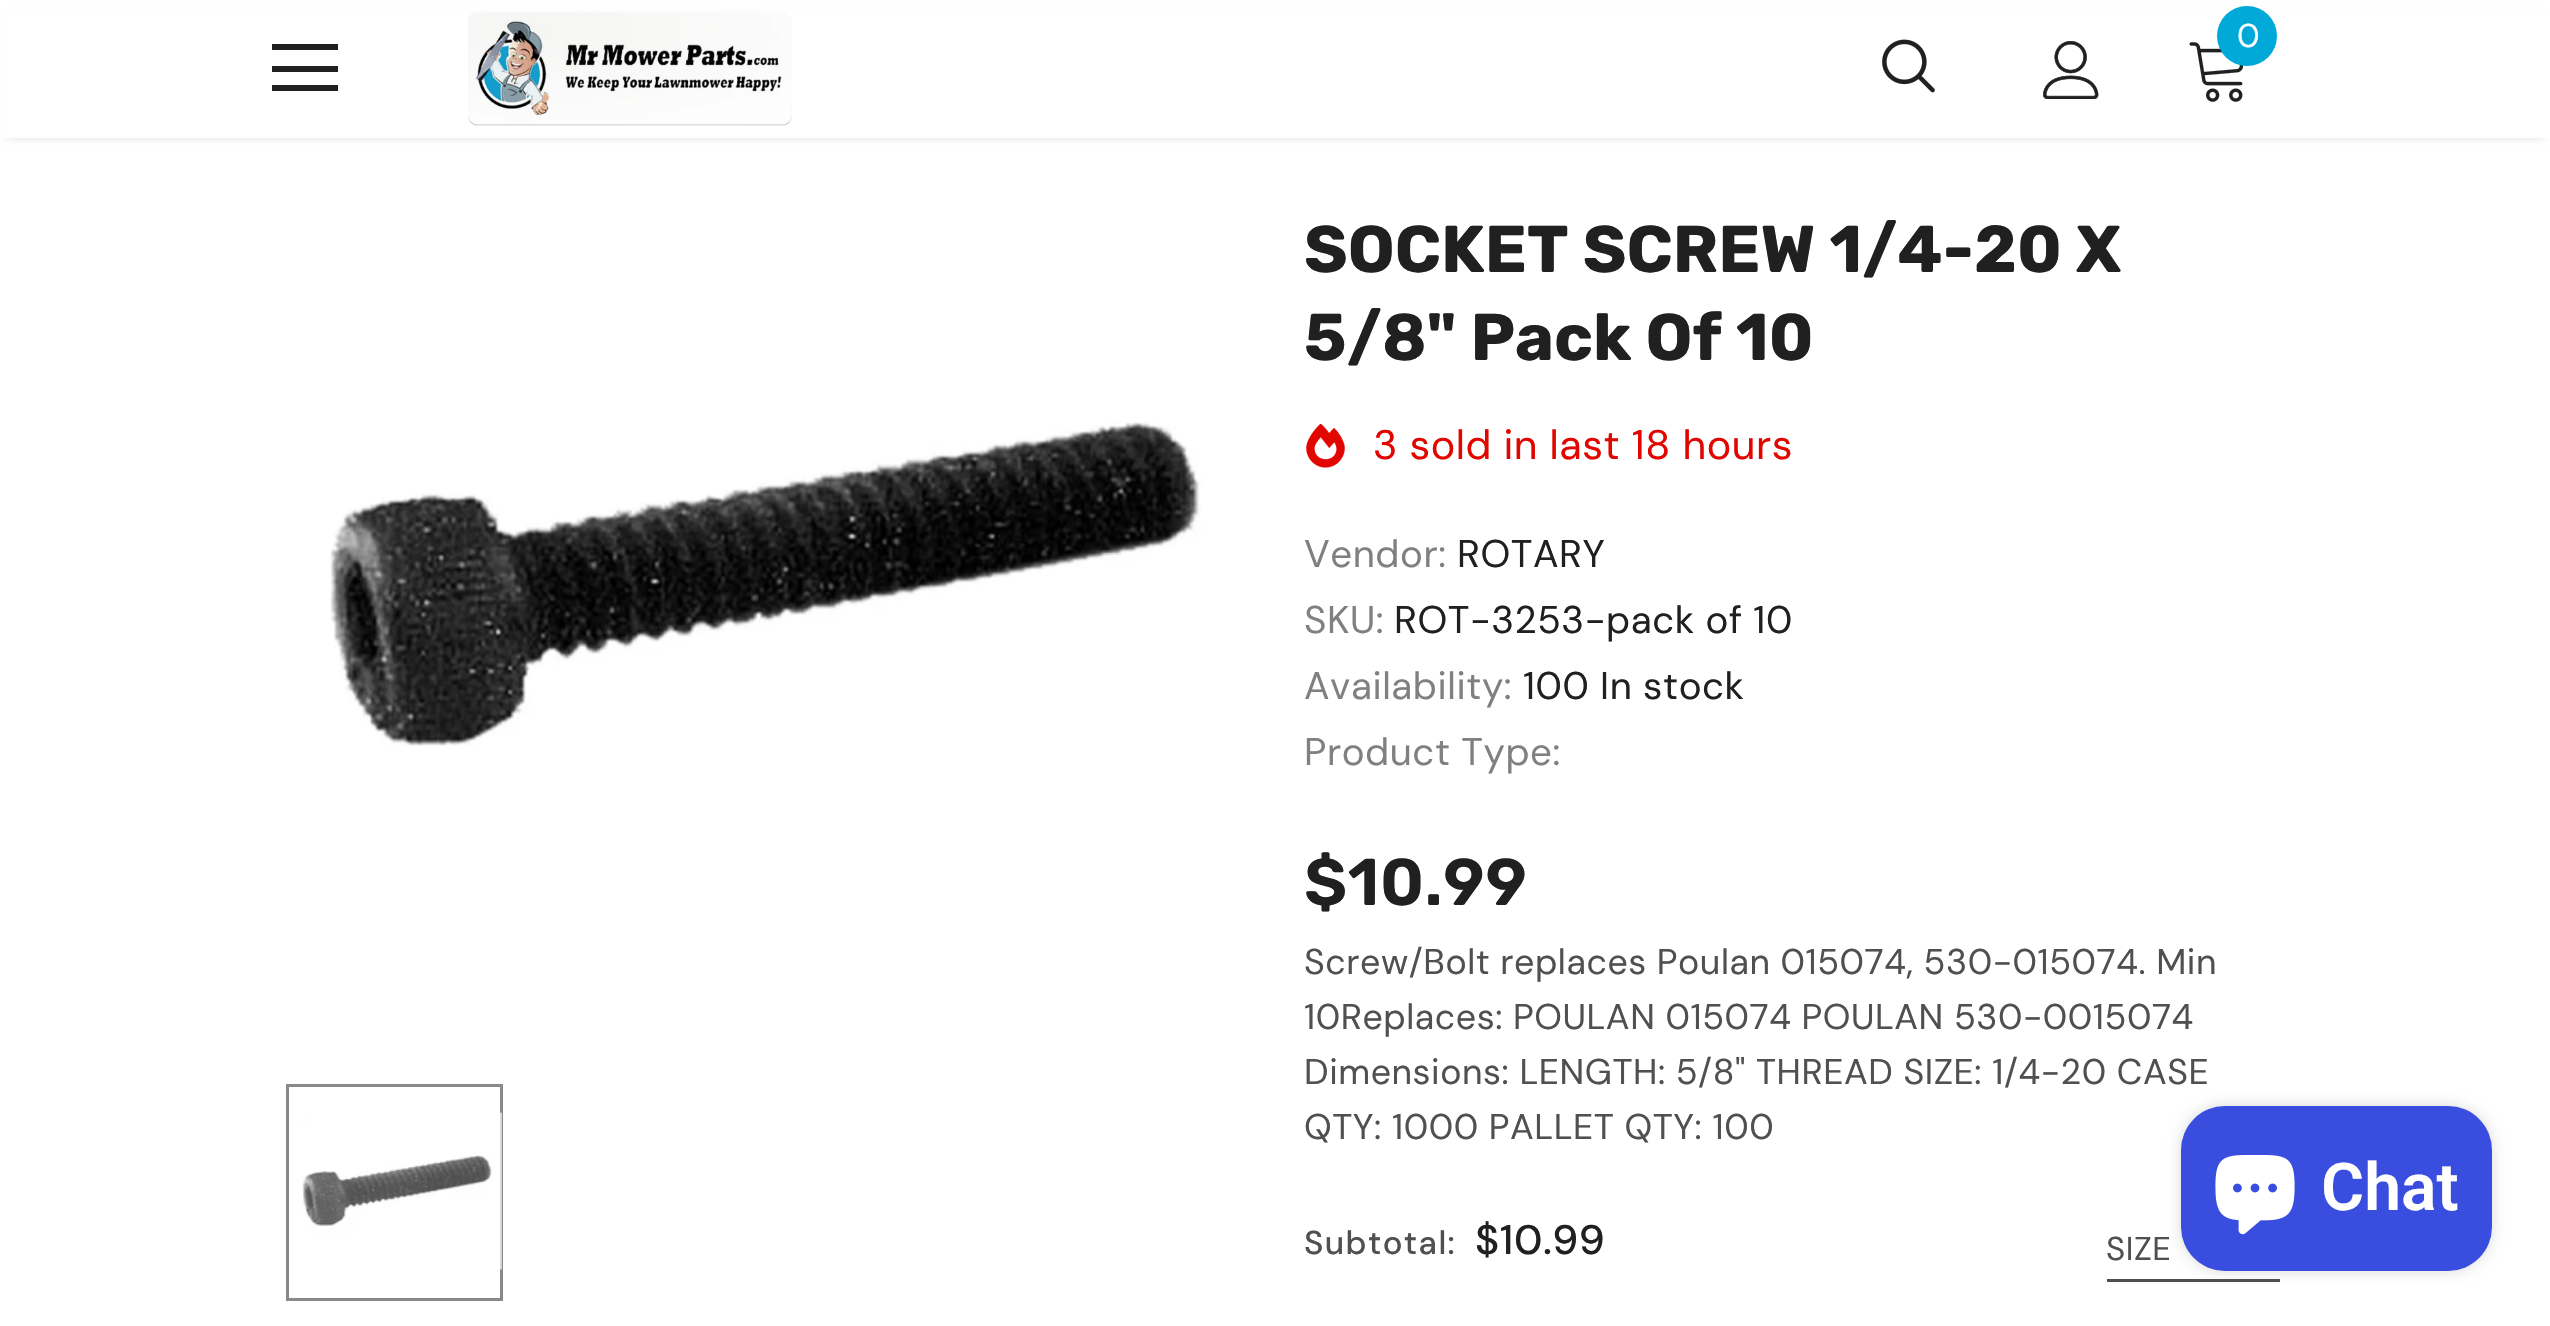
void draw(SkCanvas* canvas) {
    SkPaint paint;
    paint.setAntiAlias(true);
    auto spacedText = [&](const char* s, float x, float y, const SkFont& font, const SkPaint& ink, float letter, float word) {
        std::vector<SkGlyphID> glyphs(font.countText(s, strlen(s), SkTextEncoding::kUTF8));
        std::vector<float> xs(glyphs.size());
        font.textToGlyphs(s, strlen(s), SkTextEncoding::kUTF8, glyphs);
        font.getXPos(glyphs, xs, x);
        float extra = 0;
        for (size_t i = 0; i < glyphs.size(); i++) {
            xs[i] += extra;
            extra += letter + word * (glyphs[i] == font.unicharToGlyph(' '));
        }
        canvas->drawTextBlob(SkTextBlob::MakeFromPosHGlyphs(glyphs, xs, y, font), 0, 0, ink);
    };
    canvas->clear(0xFFFFFFFF);
    paint.setColor(0x1F000000);
    paint.setMaskFilter(SkMaskFilter::MakeBlur(kNormal_SkBlurStyle, 4));
    canvas->drawRect(SkRect::MakeXYWH(8, 17, 2536, 121), paint);
    paint.setMaskFilter(nullptr);
    paint.setColor(0xFFFFFFFF);
    canvas->drawRect(SkRect::MakeXYWH(2, 11, 2548, 127), paint);
    paint.setColor(0xFF202020);
    canvas->drawRect(SkRect::MakeXYWH(272, 44, 66, 6), paint);
    canvas->drawRect(SkRect::MakeXYWH(272, 66, 66, 6), paint);
    canvas->drawRect(SkRect::MakeXYWH(272, 85, 66, 6), paint);
    canvas->drawImageRect(SkImages::DeferredFromEncodedData(SkData::MakeFromFileName("img1.png")), SkRect::MakeXYWH(468, 11, 324, 115), SkSamplingOptions());
    canvas->drawImageRect(SkImages::DeferredFromEncodedData(SkData::MakeFromFileName("img2.png")), SkRect::MakeXYWH(2189, 42, 55, 60), SkSamplingOptions());
    paint.setColor(0xFF00A9D8);
    canvas->drawCircle(2247, 36, 30, paint);
    SkFont font1(fontMgr->matchFamilyStyle("DM Sans", SkFontStyle::Normal()), 33);
    font1.setSubpixel(true);
    paint.setColor(0xFFFFFFFF);
    canvas->drawString("0", 2237, 47, font1, paint);
    canvas->drawImageRect(SkImages::DeferredFromEncodedData(SkData::MakeFromFileName("img3.png")), SkRect::MakeXYWH(1882, 39, 53, 54), SkSamplingOptions());
    canvas->drawImageRect(SkImages::DeferredFromEncodedData(SkData::MakeFromFileName("img4.png")), SkRect::MakeXYWH(2043, 41, 56, 58), SkSamplingOptions());
    canvas->drawImageRect(SkImages::DeferredFromEncodedData(SkData::MakeFromFileName("img5.png")), SkRect::MakeXYWH(330, 421, 872, 325), SkSamplingOptions());
    paint.setStyle(SkPaint::kStroke_Style);
    paint.setStrokeWidth(3);
    paint.setColor(0xFF898989);
    canvas->drawRect(SkRect::MakeXYWH(287.5f, 1085.5f, 214, 214), paint);
    canvas->drawImageRect(SkImages::DeferredFromEncodedData(SkData::MakeFromFileName("img6.png")), SkRect::MakeXYWH(301, 1112, 201, 158), SkSamplingOptions());
    SkFont font2(fontMgr->matchFamilyStyle("Rubik", SkFontStyle::Bold()), 66);
    font2.setSubpixel(true);
    paint.setStyle(SkPaint::kFill_Style);
    paint.setColor(0xFF202020);
    canvas->drawString("SOCKET SCREW 1/4-20 X", 1304, 272, font2, paint);
    canvas->drawString("5/8\" Pack Of 10", 1304, 360, font2, paint);
    canvas->drawImageRect(SkImages::DeferredFromEncodedData(SkData::MakeFromFileName("img7.png")), SkRect::MakeXYWH(1306, 424, 39, 44), SkSamplingOptions());
    SkFont font3(fontMgr->matchFamilyStyle("DM Sans", SkFontStyle::Normal()), 41.25f);
    font3.setSubpixel(true);
    paint.setColor(0xFFE10600);
    spacedText("3 sold in last 18 hours", 1373, 459, font3, paint, 0.55f, 0);
    SkFont font4(fontMgr->matchFamilyStyle("DM Sans", SkFontStyle::Normal()), 38.5f);
    font4.setSubpixel(true);
    paint.setColor(0xFF808080);
    spacedText("Vendor:", 1304, 567, font4, paint, 0.55f, 0);
    paint.setColor(0xFF202020);
    spacedText("ROTARY", 1457, 567, font4, paint, 0.55f, 0);
    paint.setColor(0xFF808080);
    spacedText("SKU:", 1304, 633, font4, paint, 0.55f, 0);
    paint.setColor(0xFF202020);
    spacedText("ROT-3253-pack of 10", 1394, 633, font4, paint, 0.55f, 0);
    paint.setColor(0xFF808080);
    spacedText("Availability:", 1304, 699, font4, paint, 0.55f, 0);
    paint.setColor(0xFF202020);
    spacedText("100 In stock", 1523, 699, font4, paint, 0.55f, 0);
    paint.setColor(0xFF808080);
    spacedText("Product Type:", 1304, 765, font4, paint, 0.55f, 0);
    SkFont font5(fontMgr->matchFamilyStyle("Rubik", SkFontStyle(600, SkFontStyle::kNormal_Width, SkFontStyle::kUpright_Slant)), 66);
    font5.setSubpixel(true);
    paint.setColor(0xFF202020);
    spacedText("$10.99", 1304, 905, font5, paint, 0.55f, 0);
    SkFont font6(fontMgr->matchFamilyStyle("DM Sans", SkFontStyle::Normal()), 35.75f);
    font6.setSubpixel(true);
    paint.setColor(0xFF505050);
    spacedText("Screw/Bolt replaces Poulan 015074, 530-015074. Min", 1304, 974, font6, paint, 0.55f, 0);
    spacedText("10Replaces: POULAN 015074 POULAN 530-0015074", 1304, 1029, font6, paint, 0.55f, 0);
    spacedText("Dimensions: LENGTH: 5/8\" THREAD SIZE: 1/4-20 CASE", 1304, 1084, font6, paint, 0.55f, 0);
    spacedText("QTY: 1000 PALLET QTY: 100", 1304, 1139, font6, paint, 0.55f, 0);
    SkFont font7(fontMgr->matchFamilyStyle("DM Sans", SkFontStyle(500, SkFontStyle::kNormal_Width, SkFontStyle::kUpright_Slant)), 33);
    font7.setSubpixel(true);
    spacedText("Subtotal:", 1304, 1254, font7, paint, 1.4f, 0);
    SkFont font8(fontMgr->matchFamilyStyle("DM Sans", SkFontStyle(500, SkFontStyle::kNormal_Width, SkFontStyle::kUpright_Slant)), 41.25f);
    font8.setSubpixel(true);
    paint.setColor(0xFF202020);
    spacedText("$10.99", 1475, 1254, font8, paint, 0.55f, 0);
    paint.setColor(0xFF505050);
    canvas->drawRect(SkRect::MakeXYWH(2107, 1279, 173, 3), paint);
    spacedText("SIZE", 2106, 1260, font1, paint, 0.55f, 0);
    paint.setColor(0x26000000);
    paint.setMaskFilter(SkMaskFilter::MakeBlur(kNormal_SkBlurStyle, 7));
    canvas->drawRoundRect(SkRect::MakeXYWH(2181, 1106, 311, 165), 44, 44, paint);
    paint.setMaskFilter(nullptr);
    paint.setColor(0xFF394EDE);
    canvas->drawRoundRect(SkRect::MakeXYWH(2181, 1106, 311, 165), 44, 44, paint);
    canvas->drawImageRect(SkImages::DeferredFromEncodedData(SkData::MakeFromFileName("img8.png")), SkRect::MakeXYWH(2215, 1155, 80, 80), SkSamplingOptions());
    SkFont font9(fontMgr->matchFamilyStyle("Roboto", SkFontStyle(600, SkFontStyle::kNormal_Width, SkFontStyle::kUpright_Slant)), 66);
    font9.setSubpixel(true);
    paint.setColor(0xFFFFFFFF);
    canvas->drawString("Chat", 2321, 1210, font9, paint);
}
